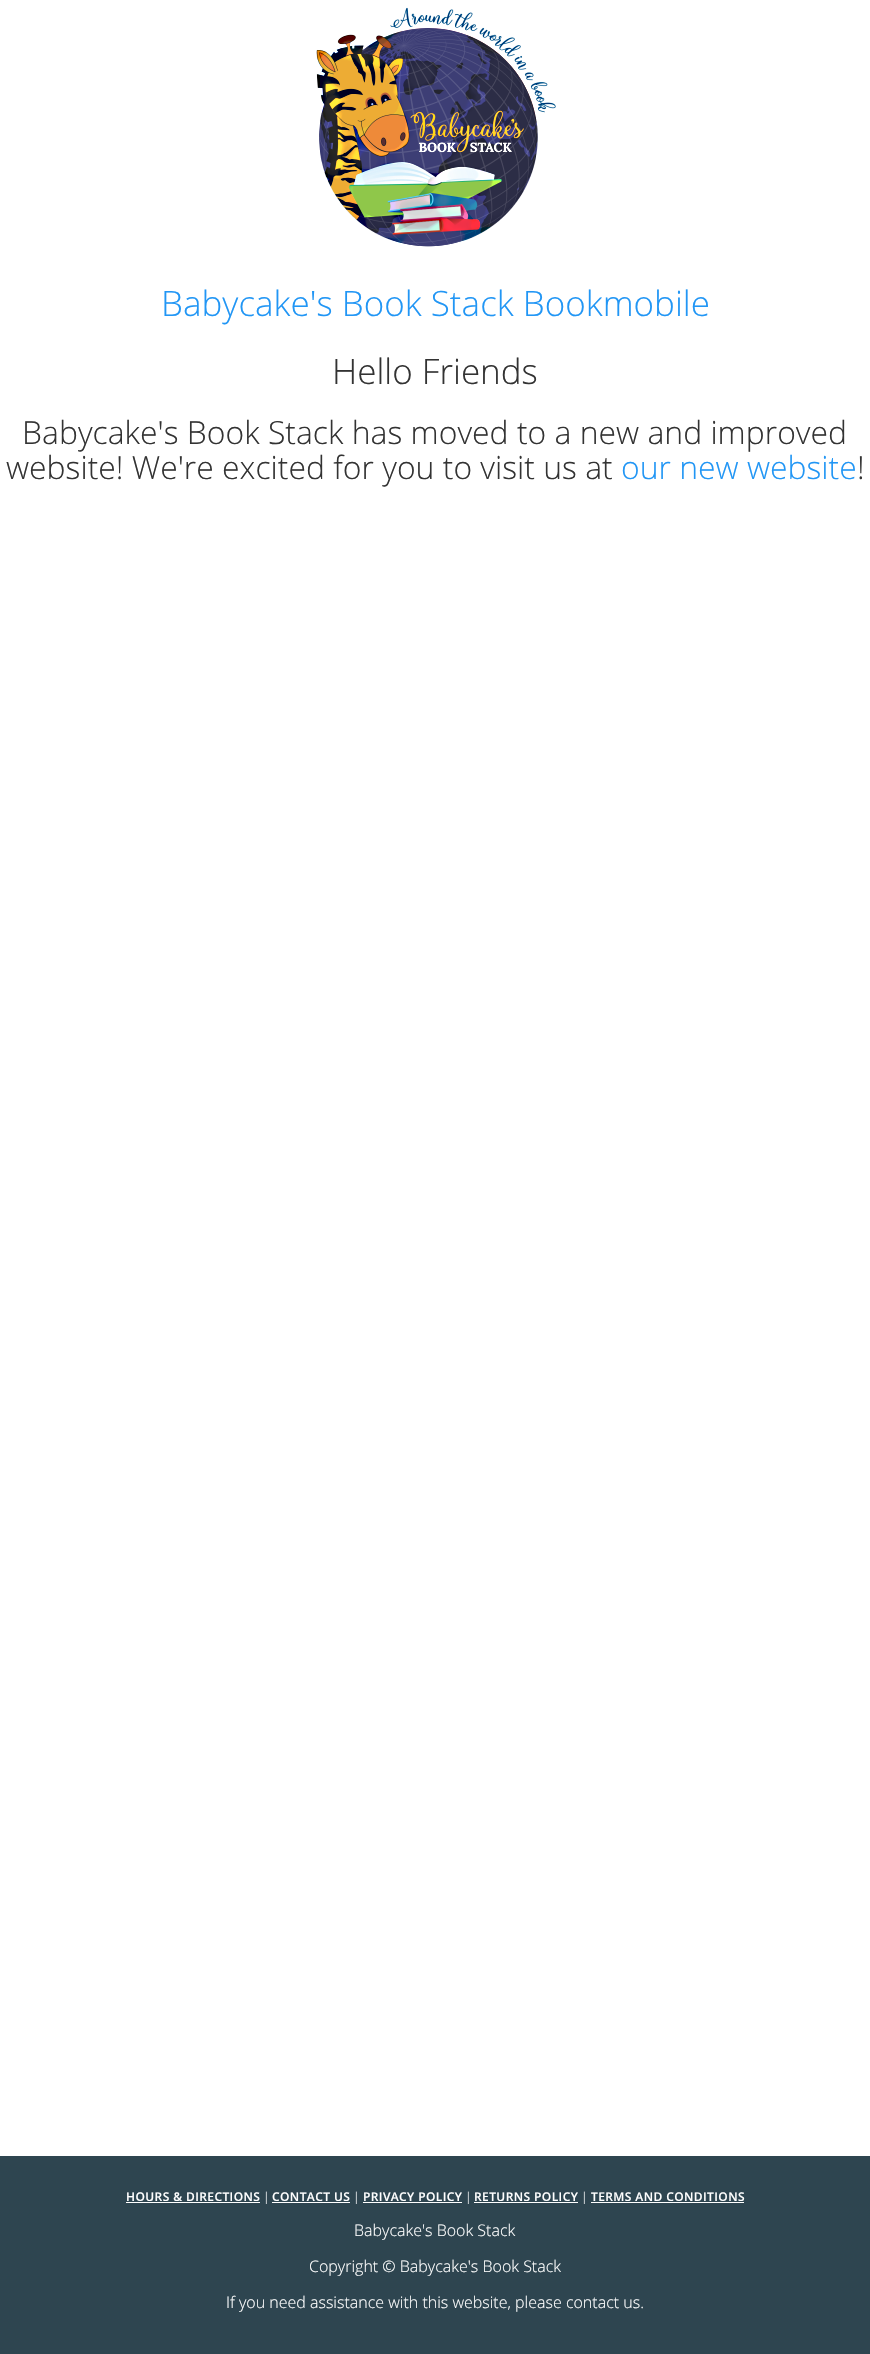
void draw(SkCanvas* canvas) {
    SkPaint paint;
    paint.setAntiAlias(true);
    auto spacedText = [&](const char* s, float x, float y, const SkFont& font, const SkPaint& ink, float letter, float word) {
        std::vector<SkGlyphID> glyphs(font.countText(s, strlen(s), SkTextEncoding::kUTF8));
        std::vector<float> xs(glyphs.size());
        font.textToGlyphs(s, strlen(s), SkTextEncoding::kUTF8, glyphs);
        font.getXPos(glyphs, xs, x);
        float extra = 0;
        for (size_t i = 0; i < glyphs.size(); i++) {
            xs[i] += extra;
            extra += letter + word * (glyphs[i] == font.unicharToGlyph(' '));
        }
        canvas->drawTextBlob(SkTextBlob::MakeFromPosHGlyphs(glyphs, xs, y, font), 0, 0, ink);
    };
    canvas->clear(0xFFFFFFFF);
    canvas->drawImageRect(SkImages::DeferredFromEncodedData(SkData::MakeFromFileName("img1.png")), SkRect::MakeXYWH(316, 7, 240, 240), SkSamplingOptions());
    SkFont font1(fontMgr->matchFamilyStyle("Open Sans", SkFontStyle(300, SkFontStyle::kNormal_Width, SkFontStyle::kUpright_Slant)), 35);
    font1.setSubpixel(true);
    paint.setColor(0xFF2196F5);
    canvas->drawString("Babycake's Book Stack Bookmobile", 161, 316, font1, paint);
    paint.setColor(0xFF333333);
    canvas->drawString("Hello Friends", 332, 384, font1, paint);
    SkFont font2(fontMgr->matchFamilyStyle("Open Sans", SkFontStyle(300, SkFontStyle::kNormal_Width, SkFontStyle::kUpright_Slant)), 31.9f);
    font2.setSubpixel(true);
    canvas->drawString("Babycake's Book Stack has moved to a new and improved", 22, 444, font2, paint);
    canvas->drawString("website! We're excited for you to visit us at", 6, 479, font2, paint);
    paint.setColor(0xFF2196F5);
    canvas->drawString("our new website", 621, 479, font2, paint);
    paint.setColor(0xFF333333);
    canvas->drawString("!", 857, 479, font2, paint);
    paint.setColor(0xFF2E4550);
    canvas->drawRect(SkRect::MakeXYWH(0, 2156, 870, 198), paint);
    SkFont font3(fontMgr->matchFamilyStyle("Open Sans", SkFontStyle(600, SkFontStyle::kNormal_Width, SkFontStyle::kUpright_Slant)), 12);
    font3.setSubpixel(true);
    paint.setColor(0xFFFFFFFF);
    spacedText("HOURS & DIRECTIONS", 126, 2201, font3, paint, 0.4f, 0);
    canvas->drawRect(SkRect::MakeXYWH(126, 2202, 134, 1), paint);
    SkFont font4(fontMgr->matchFamilyStyle("Open Sans", SkFontStyle(300, SkFontStyle::kNormal_Width, SkFontStyle::kUpright_Slant)), 12);
    font4.setSubpixel(true);
    canvas->drawString("|", 263, 2201, font4, paint);
    spacedText("CONTACT US", 272, 2201, font3, paint, 0.4f, 0);
    canvas->drawRect(SkRect::MakeXYWH(272, 2202, 78, 1), paint);
    canvas->drawString("|", 353, 2201, font4, paint);
    spacedText("PRIVACY POLICY", 363, 2201, font3, paint, 0.4f, 0);
    canvas->drawRect(SkRect::MakeXYWH(363, 2202, 99, 1), paint);
    canvas->drawString("|", 465, 2201, font4, paint);
    spacedText("RETURNS POLICY", 474, 2201, font3, paint, 0.4f, 0);
    canvas->drawRect(SkRect::MakeXYWH(474, 2202, 104, 1), paint);
    canvas->drawString("|", 581, 2201, font4, paint);
    spacedText("TERMS AND CONDITIONS", 591, 2201, font3, paint, 0.4f, 0);
    canvas->drawRect(SkRect::MakeXYWH(591, 2202, 153, 1), paint);
    SkFont font5(fontMgr->matchFamilyStyle("Open Sans", SkFontStyle(300, SkFontStyle::kNormal_Width, SkFontStyle::kUpright_Slant)), 16);
    font5.setSubpixel(true);
    canvas->drawString("Babycake's Book Stack", 354, 2236, font5, paint);
    canvas->drawString("Copyright © Babycake's Book Stack", 309, 2272, font5, paint);
    canvas->drawString("If you need assistance with this website, please contact us.", 226, 2308, font5, paint);
}
